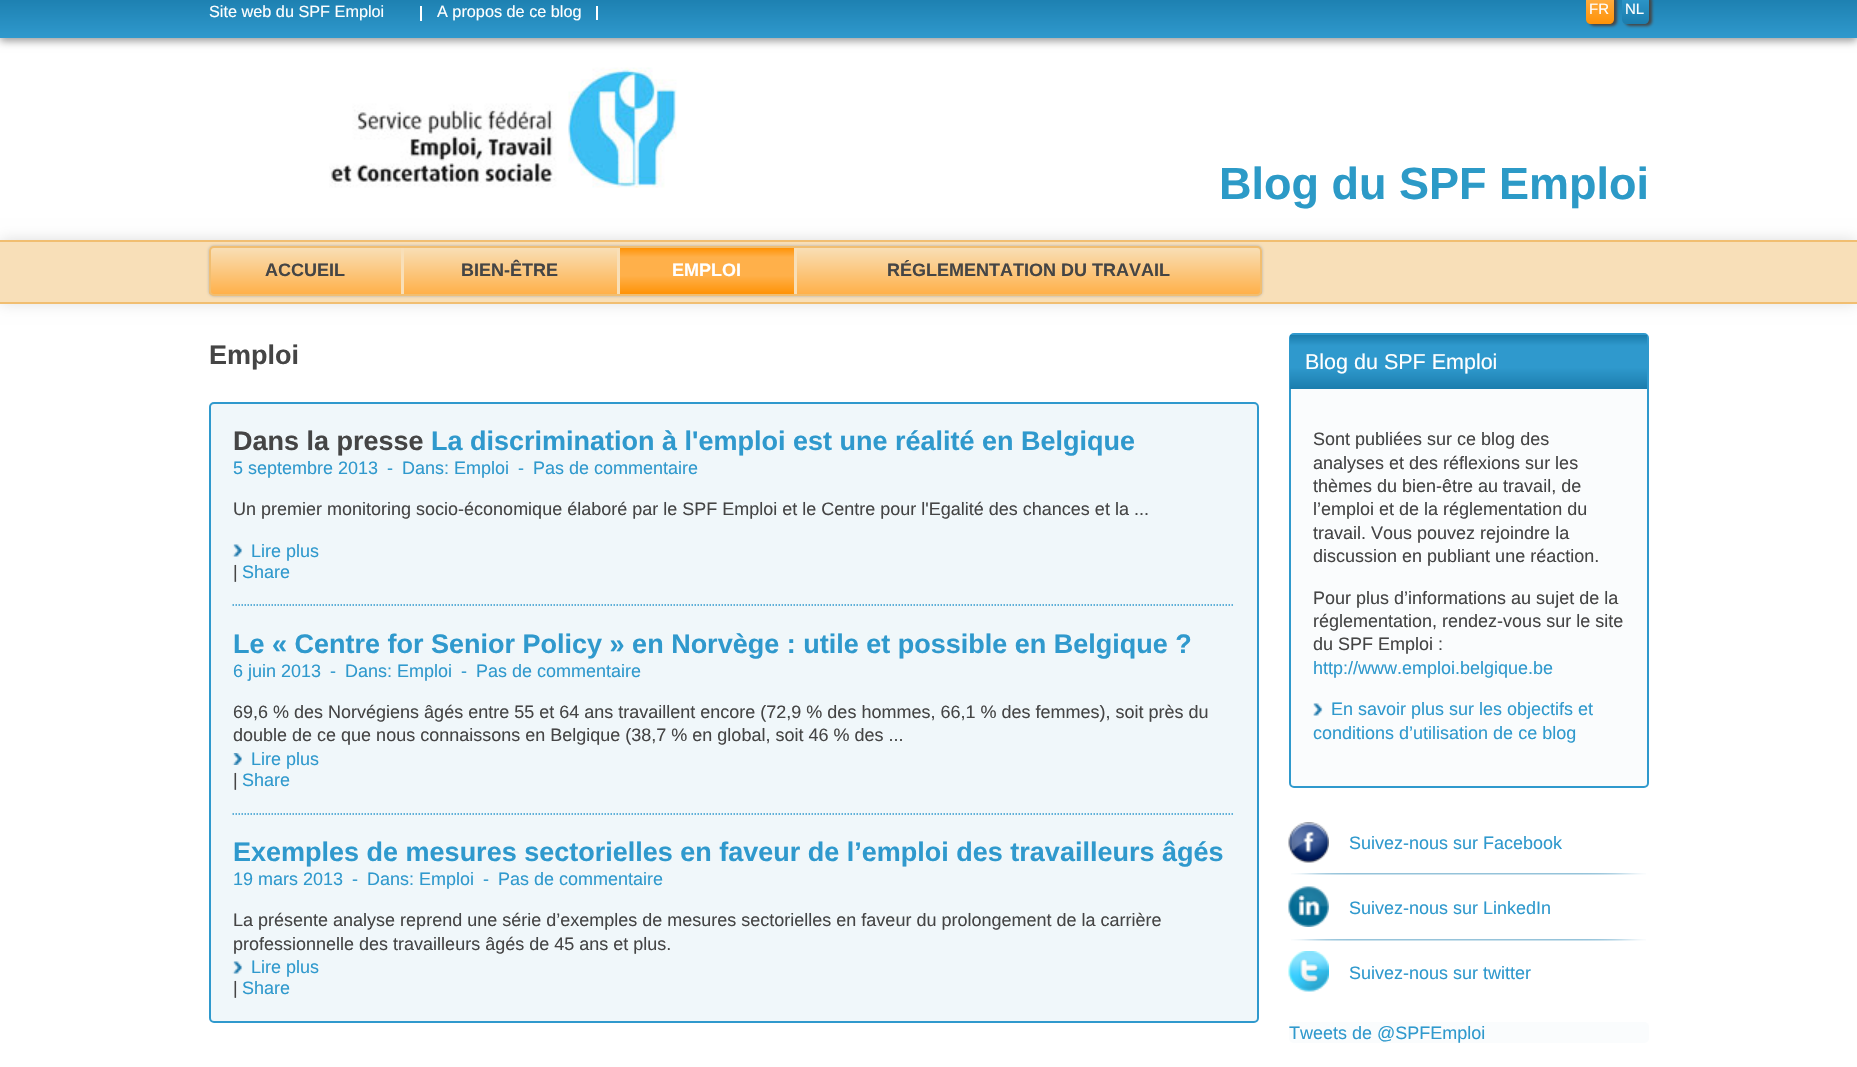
void draw(SkCanvas* canvas) {
    SkPaint paint;
    paint.setAntiAlias(true);
    canvas->clear(0xFFFFFFFF);
    paint.setColor(0xFF999999);
    paint.setMaskFilter(SkMaskFilter::MakeBlur(kNormal_SkBlurStyle, 4));
    canvas->drawRect(SkRect::MakeXYWH(0, -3, 1857, 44), paint);
    paint.setMaskFilter(nullptr);
    {
        const SkColor colors[] = {0xFF1B7DAD, 0xFF2F99CD};
        const float stops[] = {0, 1};
        const SkPoint ends[] = {{929, -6}, {929, 38}};
        paint.setShader(SkGradientShader::MakeLinear(ends, colors, stops, 2, SkTileMode::kClamp));
        paint.setAlpha(255);
    }
    canvas->drawRect(SkRect::MakeXYWH(0, 0, 1857, 38), paint);
    paint.setShader(nullptr);
    paint.setColor(0xFFFFFFFF);
    canvas->drawRect(SkRect::MakeXYWH(420, 6, 2, 15), paint);
    SkFont font1(fontMgr->matchFamilyStyle("Liberation Sans", SkFontStyle::Normal()), 16.25f);
    font1.setSubpixel(true);
    canvas->drawString("Site web du SPF Emploi", 209, 17, font1, paint);
    canvas->drawRect(SkRect::MakeXYWH(596, 6, 2, 14), paint);
    canvas->drawString("A propos de ce blog", 437, 17, font1, paint);
    paint.setColor(0xFF454545);
    paint.setMaskFilter(SkMaskFilter::MakeBlur(kNormal_SkBlurStyle, 1.5f));
    canvas->drawRoundRect(SkRect::MakeXYWH(1589, -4, 28, 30), 5, 5, paint);
    paint.setMaskFilter(nullptr);
    {
        const SkColor colors[] = {0xFFFFB04A, 0xFFFF9307};
        const float stops[] = {0, 1};
        const SkPoint ends[] = {{1600, -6}, {1600, 24}};
        paint.setShader(SkGradientShader::MakeLinear(ends, colors, stops, 2, SkTileMode::kClamp));
        paint.setAlpha(255);
    }
    canvas->drawPath(SkPathBuilder().moveTo(1586, -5).lineTo(1614, -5).lineTo(1614, 19).cubicTo(1614, 22, 1612, 24, 1609, 24).lineTo(1591, 24).cubicTo(1588, 24, 1586, 22, 1586, 19).close().detach(), paint);
    SkFont font2(fontMgr->matchFamilyStyle("Liberation Sans", SkFontStyle::Normal()), 15);
    font2.setSubpixel(true);
    paint.setShader(nullptr);
    paint.setColor(0xFFFFFFFF);
    canvas->drawString("FR", 1589, 14, font2, paint);
    paint.setColor(0xFF454545);
    paint.setMaskFilter(SkMaskFilter::MakeBlur(kNormal_SkBlurStyle, 1.5f));
    canvas->drawRoundRect(SkRect::MakeXYWH(1625, -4, 27, 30), 5, 5, paint);
    paint.setMaskFilter(nullptr);
    {
        const SkColor colors[] = {0xFF2F99CD, 0xFF1B7DAD};
        const float stops[] = {0, 1};
        const SkPoint ends[] = {{1635, -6}, {1635, 24}};
        paint.setShader(SkGradientShader::MakeLinear(ends, colors, stops, 2, SkTileMode::kClamp));
        paint.setAlpha(255);
    }
    canvas->drawPath(SkPathBuilder().moveTo(1622, -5).lineTo(1649, -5).lineTo(1649, 19).cubicTo(1649, 22, 1647, 24, 1644, 24).lineTo(1627, 24).cubicTo(1624, 24, 1622, 22, 1622, 19).close().detach(), paint);
    paint.setShader(nullptr);
    paint.setColor(0xFFFFFFFF);
    canvas->drawString("NL", 1625, 14, font2, paint);
    canvas->drawImageRect(SkImages::DeferredFromEncodedData(SkData::MakeFromFileName("img1.png")), SkRect::MakeXYWH(329, 67, 348, 121), SkSamplingOptions());
    SkFont font3(fontMgr->matchFamilyStyle("Liberation Sans", SkFontStyle::Bold()), 45);
    font3.setSubpixel(true);
    paint.setColor(0xFF2C9AC7);
    canvas->drawString("Blog du SPF Emploi", 1219, 199, font3, paint);
    paint.setColor(0xFFDDDDDD);
    paint.setMaskFilter(SkMaskFilter::MakeBlur(kNormal_SkBlurStyle, 7.5f));
    canvas->drawRect(SkRect::MakeXYWH(0, 240, 1857, 63), paint);
    paint.setMaskFilter(nullptr);
    paint.setColor(0xFFF8DFB8);
    canvas->drawRect(SkRect::MakeXYWH(0, 242, 1857, 60), paint);
    paint.setColor(0xFFF1BE71);
    canvas->drawRect(SkRect::MakeXYWH(0, 240, 1857, 2), paint);
    canvas->drawRect(SkRect::MakeXYWH(0, 302, 1857, 2), paint);
    paint.setColor(0xFFAAAAAA);
    paint.setMaskFilter(SkMaskFilter::MakeBlur(kNormal_SkBlurStyle, 1.5f));
    canvas->drawRoundRect(SkRect::MakeXYWH(209, 246, 1053, 50), 5, 5, paint);
    paint.setMaskFilter(nullptr);
    canvas->save();
    canvas->clipPath(SkPathBuilder().moveTo(214, 246).lineTo(1257, 246).cubicTo(1260, 246, 1262, 248, 1262, 251).lineTo(1262, 291).cubicTo(1262, 294, 1260, 296, 1257, 296).lineTo(214, 296).cubicTo(211, 296, 209, 294, 209, 291).lineTo(209, 251).cubicTo(209, 248, 211, 246, 214, 246).close().detach(), true);
    {
        const SkColor colors[] = {0xFFF8DFB8, 0xFFFFB04A};
        const float stops[] = {0, 1};
        const SkPoint ends[] = {{735, 247}, {735, 294}};
        paint.setShader(SkGradientShader::MakeLinear(ends, colors, stops, 2, SkTileMode::kClamp));
        paint.setAlpha(255);
    }
    canvas->drawRect(SkRect::MakeXYWH(209, 248, 1053, 46), paint);
    canvas->restore();
    paint.setStyle(SkPaint::kStroke_Style);
    paint.setStrokeWidth(2);
    paint.setShader(nullptr);
    paint.setColor(0xFFF1BE71);
    canvas->drawRoundRect(SkRect::MakeXYWH(210, 247, 1051, 48), 4, 4, paint);
    paint.setStyle(SkPaint::kFill_Style);
    paint.setColor(0xFFF8DFB8);
    canvas->drawRect(SkRect::MakeXYWH(401, 248, 3, 46), paint);
    SkFont font4(fontMgr->matchFamilyStyle("Liberation Sans", SkFontStyle::Bold()), 18);
    font4.setSubpixel(true);
    paint.setColor(0xFF454545);
    canvas->drawString("ACCUEIL", 265, 276, font4, paint);
    paint.setColor(0xFFF8DFB8);
    canvas->drawRect(SkRect::MakeXYWH(617, 248, 3, 46), paint);
    paint.setColor(0xFF454545);
    canvas->drawString("BIEN-ÊTRE", 461, 276, font4, paint);
    {
        const SkColor colors[] = {0xFFFF9307, 0xFFFFB04A, 0xFFFFB04A, 0xFFFF9307};
        const float stops[] = {0, 0.2f, 0.6f, 1};
        const SkPoint ends[] = {{707, 248}, {707, 294}};
        paint.setShader(SkGradientShader::MakeLinear(ends, colors, stops, 4, SkTileMode::kClamp));
        paint.setAlpha(255);
    }
    canvas->drawRect(SkRect::MakeXYWH(620, 248, 174, 46), paint);
    paint.setShader(nullptr);
    paint.setColor(0xFFF8DFB8);
    canvas->drawRect(SkRect::MakeXYWH(794, 248, 3, 46), paint);
    paint.setColor(0xFFFFFFFF);
    canvas->drawString("EMPLOI", 672, 276, font4, paint);
    paint.setColor(0xFF454545);
    canvas->drawString("RÉGLEMENTATION DU TRAVAIL", 887, 276, font4, paint);
    SkFont font5(fontMgr->matchFamilyStyle("Liberation Sans", SkFontStyle::Bold()), 27);
    font5.setSubpixel(true);
    canvas->drawString("Emploi", 209, 364, font5, paint);
    paint.setColor(0xFFF0F7FA);
    canvas->drawRoundRect(SkRect::MakeXYWH(210, 403, 1048, 619), 4, 4, paint);
    paint.setStyle(SkPaint::kStroke_Style);
    paint.setColor(0xFF2F99CD);
    canvas->drawRoundRect(SkRect::MakeXYWH(210, 403, 1048, 619), 4, 4, paint);
    paint.setStrokeWidth(1.5f);
    paint.setPathEffect(SkDashPathEffect::Make({{1.5f, 1.5f}}, 0));
    canvas->drawPath(SkPathBuilder().moveTo(232.5f, 605).lineTo(1234.5f, 605).detach(), paint);
    paint.setPathEffect(nullptr);
    paint.setStyle(SkPaint::kFill_Style);
    paint.setColor(0xFF454545);
    canvas->drawString("Dans la presse", 233, 450, font5, paint);
    paint.setColor(0xFF2F99CD);
    canvas->drawString("La discrimination à l'emploi est une réalité en Belgique", 431, 450, font5, paint);
    SkFont font6(fontMgr->matchFamilyStyle("Liberation Sans", SkFontStyle::Normal()), 18);
    font6.setSubpixel(true);
    canvas->drawString("5 septembre 2013", 233, 474, font6, paint);
    canvas->drawString("-", 387, 474, font6, paint);
    canvas->drawString("Dans: Emploi", 402, 474, font6, paint);
    canvas->drawString("-", 518, 474, font6, paint);
    canvas->drawString("Pas de commentaire", 533, 474, font6, paint);
    paint.setColor(0xFF454545);
    canvas->drawString("Un premier monitoring socio-économique élaboré par le SPF Emploi et le Centre pour l'Egalité des chances et la ...", 233, 515, font6, paint);
    canvas->drawImageRect(SkImages::DeferredFromEncodedData(SkData::MakeFromFileName("img2.png")), SkRect::MakeXYWH(232, 544, 11, 13), SkSamplingOptions());
    paint.setColor(0xFF2F99CD);
    canvas->drawString("Lire plus", 251, 557, font6, paint);
    paint.setColor(0xFF454545);
    canvas->drawString("|", 233, 578, font6, paint);
    paint.setColor(0xFF2F99CD);
    canvas->drawString("Share", 242, 578, font6, paint);
    paint.setStyle(SkPaint::kStroke_Style);
    paint.setPathEffect(SkDashPathEffect::Make({{1.5f, 1.5f}}, 0));
    canvas->drawPath(SkPathBuilder().moveTo(232.5f, 814).lineTo(1234.5f, 814).detach(), paint);
    paint.setPathEffect(nullptr);
    paint.setStyle(SkPaint::kFill_Style);
    canvas->drawString("Le « Centre for Senior Policy » en Norvège : utile et possible en Belgique ?", 233, 653, font5, paint);
    canvas->drawString("6 juin 2013", 233, 677, font6, paint);
    canvas->drawString("-", 330, 677, font6, paint);
    canvas->drawString("Dans: Emploi", 345, 677, font6, paint);
    canvas->drawString("-", 461, 677, font6, paint);
    canvas->drawString("Pas de commentaire", 476, 677, font6, paint);
    paint.setColor(0xFF454545);
    canvas->drawString("69,6 % des Norvégiens âgés entre 55 et 64 ans travaillent encore (72,9 % des hommes, 66,1 % des femmes), soit près du", 233, 718, font6, paint);
    canvas->drawString("double de ce que nous connaissons en Belgique (38,7 % en global, soit 46 % des ...", 233, 741, font6, paint);
    canvas->drawImageRect(SkImages::DeferredFromEncodedData(SkData::MakeFromFileName("img3.png")), SkRect::MakeXYWH(232, 753, 10, 12), SkSamplingOptions());
    paint.setColor(0xFF2F99CD);
    canvas->drawString("Lire plus", 251, 765, font6, paint);
    paint.setColor(0xFF454545);
    canvas->drawString("|", 233, 786, font6, paint);
    paint.setColor(0xFF2F99CD);
    canvas->drawString("Share", 242, 786, font6, paint);
    canvas->drawString("Exemples de mesures sectorielles en faveur de l’emploi des travailleurs âgés", 233, 861, font5, paint);
    canvas->drawString("19 mars 2013", 233, 885, font6, paint);
    canvas->drawString("-", 352, 885, font6, paint);
    canvas->drawString("Dans: Emploi", 367, 885, font6, paint);
    canvas->drawString("-", 483, 885, font6, paint);
    canvas->drawString("Pas de commentaire", 498, 885, font6, paint);
    paint.setColor(0xFF454545);
    canvas->drawString("La présente analyse reprend une série d’exemples de mesures sectorielles en faveur du prolongement de la carrière", 233, 926, font6, paint);
    canvas->drawString("professionnelle des travailleurs âgés de 45 ans et plus.", 233, 950, font6, paint);
    canvas->drawImageRect(SkImages::DeferredFromEncodedData(SkData::MakeFromFileName("img2.png")), SkRect::MakeXYWH(232, 961, 11, 13), SkSamplingOptions());
    paint.setColor(0xFF2F99CD);
    canvas->drawString("Lire plus", 251, 973, font6, paint);
    paint.setColor(0xFF454545);
    canvas->drawString("|", 233, 994, font6, paint);
    paint.setColor(0xFF2F99CD);
    canvas->drawString("Share", 242, 994, font6, paint);
    paint.setColor(0xFFFAFCFD);
    canvas->drawRoundRect(SkRect::MakeXYWH(1290, 334, 358, 453), 4, 4, paint);
    paint.setStyle(SkPaint::kStroke_Style);
    paint.setStrokeWidth(2);
    paint.setColor(0xFF2F99CD);
    canvas->drawRoundRect(SkRect::MakeXYWH(1290, 334, 358, 453), 4, 4, paint);
    paint.setStyle(SkPaint::kFill_Style);
    {
        const SkColor colors[] = {0xFF1B7DAD, 0xFF2F99CD, 0xFF2F99CD, 0xFF1B7DAD};
        const float stops[] = {0, 0.2f, 0.6f, 1};
        const SkPoint ends[] = {{1469, 335}, {1469, 389}};
        paint.setShader(SkGradientShader::MakeLinear(ends, colors, stops, 4, SkTileMode::kClamp));
        paint.setAlpha(255);
    }
    canvas->drawRect(SkRect::MakeXYWH(1290, 335, 357, 54), paint);
    SkFont font7(fontMgr->matchFamilyStyle("Liberation Sans", SkFontStyle::Normal()), 21.5f);
    font7.setSubpixel(true);
    paint.setShader(nullptr);
    paint.setColor(0xFFFFFFFF);
    canvas->drawString("Blog du SPF Emploi", 1305, 369, font7, paint);
    paint.setColor(0xFF454545);
    canvas->drawString("Sont publiées sur ce blog des", 1313, 445, font6, paint);
    canvas->drawString("analyses et des réflexions sur les", 1313, 469, font6, paint);
    canvas->drawString("thèmes du bien-être au travail, de", 1313, 492, font6, paint);
    canvas->drawString("l’emploi et de la réglementation du", 1313, 515, font6, paint);
    canvas->drawString("travail. Vous pouvez rejoindre la", 1313, 539, font6, paint);
    canvas->drawString("discussion en publiant une réaction.", 1313, 562, font6, paint);
    canvas->drawString("Pour plus d’informations au sujet de la", 1313, 604, font6, paint);
    canvas->drawString("réglementation, rendez-vous sur le site", 1313, 627, font6, paint);
    canvas->drawString("du SPF Emploi :", 1313, 650, font6, paint);
    paint.setColor(0xFF2F99CD);
    canvas->drawString("http://www.emploi.belgique.be", 1313, 674, font6, paint);
    canvas->drawImageRect(SkImages::DeferredFromEncodedData(SkData::MakeFromFileName("img4.png")), SkRect::MakeXYWH(1313, 703, 10, 13), SkSamplingOptions());
    canvas->drawString("En savoir plus sur les objectifs et", 1331, 715, font6, paint);
    canvas->drawString("conditions d’utilisation de ce blog", 1313, 739, font6, paint);
    canvas->drawImageRect(SkImages::DeferredFromEncodedData(SkData::MakeFromFileName("img5.png")), SkRect::MakeXYWH(1291, 873, 355, 2), SkSamplingOptions());
    canvas->drawImageRect(SkImages::DeferredFromEncodedData(SkData::MakeFromFileName("img6.png")), SkRect::MakeXYWH(1288, 822, 41, 41), SkSamplingOptions());
    canvas->drawString("Suivez-nous sur Facebook", 1349, 849, font6, paint);
    canvas->drawImageRect(SkImages::DeferredFromEncodedData(SkData::MakeFromFileName("img5.png")), SkRect::MakeXYWH(1291, 939, 355, 2), SkSamplingOptions());
    canvas->drawImageRect(SkImages::DeferredFromEncodedData(SkData::MakeFromFileName("img7.png")), SkRect::MakeXYWH(1288, 886, 41, 41), SkSamplingOptions());
    canvas->drawString("Suivez-nous sur LinkedIn", 1349, 914, font6, paint);
    canvas->drawImageRect(SkImages::DeferredFromEncodedData(SkData::MakeFromFileName("img8.png")), SkRect::MakeXYWH(1288, 951, 41, 41), SkSamplingOptions());
    canvas->drawString("Suivez-nous sur twitter", 1349, 979, font6, paint);
    paint.setColor(0xFFFAFCFD);
    canvas->drawRoundRect(SkRect::MakeXYWH(1289, 1022, 360, 21), 5, 5, paint);
    paint.setColor(0xFF2F99CD);
    canvas->drawString("Tweets de @SPFEmploi", 1289, 1039, font6, paint);
}
